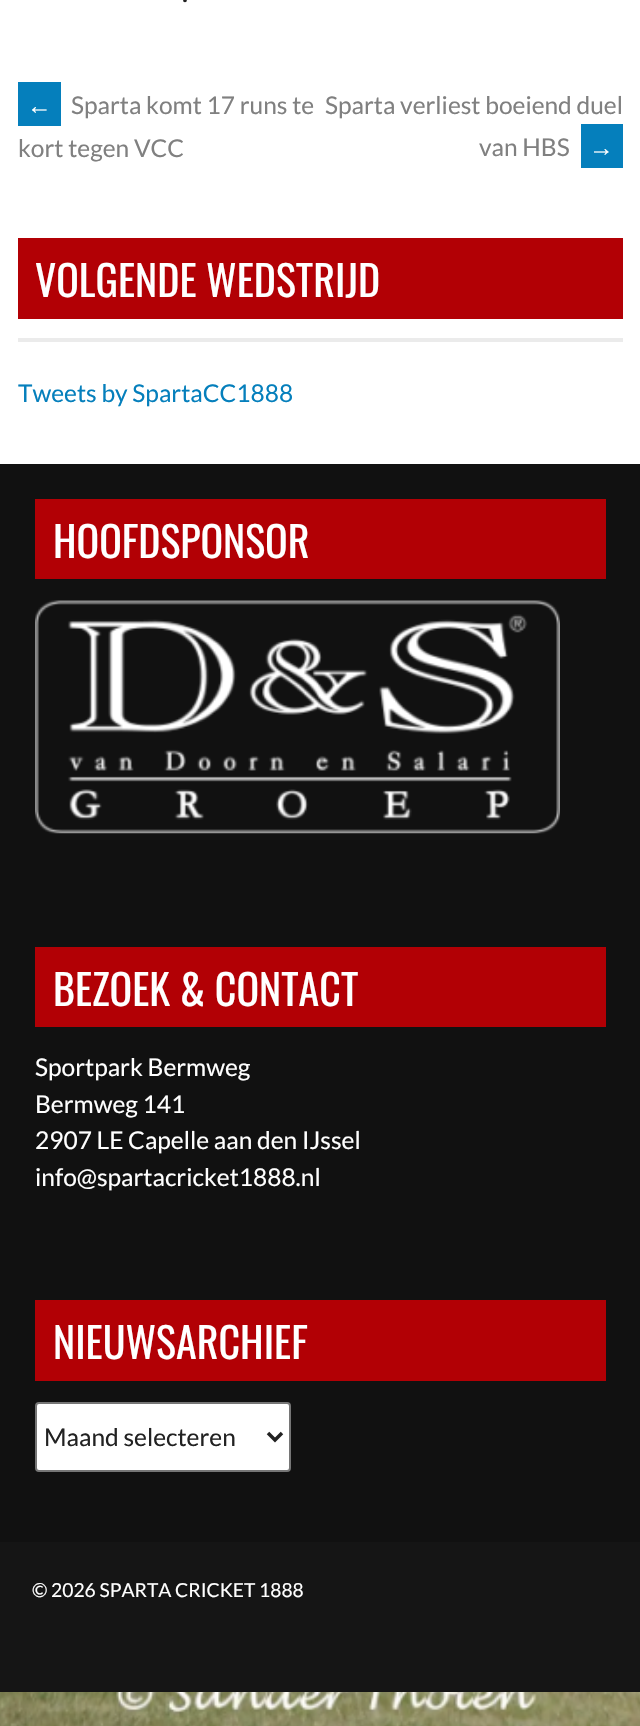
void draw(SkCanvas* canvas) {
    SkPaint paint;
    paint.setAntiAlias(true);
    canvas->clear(0xFFFFFFFF);
    canvas->drawImageRect(SkImages::DeferredFromEncodedData(SkData::MakeFromFileName("img1.png")), SkRect::MakeXYWH(0, 1692, 640, 34), SkSamplingOptions());
    SkFont font1(fontMgr->matchFamilyStyle("Lato", SkFontStyle::Normal()), 28);
    font1.setSubpixel(true);
    paint.setColor(0xFF222222);
    canvas->drawString(".", 182, 2, font1, paint);
    paint.setColor(0xFF057FBC);
    canvas->drawRect(SkRect::MakeXYWH(18, 82, 43, 44), paint);
    SkFont font2(fontMgr->matchFamilyStyle("Liberation Sans", SkFontStyle::Normal()), 24.5f);
    font2.setSubpixel(true);
    paint.setColor(0xFFFFFFFF);
    canvas->drawString("←", 27, 114, font2, paint);
    SkFont font3(fontMgr->matchFamilyStyle("Lato", SkFontStyle::Normal()), 24.5f);
    font3.setSubpixel(true);
    paint.setColor(0xFF808080);
    canvas->drawString("Sparta komt 17 runs te", 71, 114, font3, paint);
    canvas->drawString("kort tegen VCC", 18, 157, font3, paint);
    canvas->drawString("Sparta verliest boeiend duel", 325, 114, font3, paint);
    canvas->drawString("van HBS", 479, 156, font3, paint);
    paint.setColor(0xFF057FBC);
    canvas->drawRect(SkRect::MakeXYWH(581, 124, 42, 44), paint);
    paint.setColor(0xFFFFFFFF);
    canvas->drawString("→", 589, 156, font2, paint);
    paint.setColor(0xFFB20005);
    canvas->drawRect(SkRect::MakeXYWH(18, 238, 605, 81), paint);
    SkFont font4(fontMgr->matchFamilyStyle("Oswald", SkFontStyle::Normal()), 42);
    font4.setSubpixel(true);
    paint.setColor(0xFFFFFFFF);
    canvas->drawString("VOLGENDE WEDSTRIJD", 35, 297, font4, paint);
    paint.setColor(0xFFEBEBEB);
    canvas->drawRect(SkRect::MakeXYWH(18, 338, 605, 4), paint);
    paint.setColor(0xFF057FBC);
    canvas->drawString("Tweets by SpartaCC1888", 18, 402, font3, paint);
    paint.setColor(0xFF111111);
    canvas->drawRect(SkRect::MakeXYWH(0, 464, 640, 1078), paint);
    paint.setColor(0xFFB20005);
    canvas->drawRect(SkRect::MakeXYWH(35, 499, 571, 80), paint);
    paint.setColor(0xFFFFFFFF);
    canvas->drawString("HOOFDSPONSOR", 53, 558, font4, paint);
    canvas->drawImageRect(SkImages::DeferredFromEncodedData(SkData::MakeFromFileName("img2.png")), SkRect::MakeXYWH(35, 600, 525, 234), SkSamplingOptions());
    paint.setColor(0xFFB20005);
    canvas->drawRect(SkRect::MakeXYWH(35, 947, 571, 80), paint);
    paint.setColor(0xFFFFFFFF);
    canvas->drawString("BEZOEK & CONTACT", 53, 1006, font4, paint);
    canvas->drawString("Sportpark Bermweg", 35, 1076, font3, paint);
    canvas->drawString("Bermweg 141", 35, 1113, font3, paint);
    canvas->drawString("2907 LE Capelle aan den IJssel", 35, 1149, font3, paint);
    canvas->drawString("info@spartacricket1888.nl", 35, 1186, font3, paint);
    paint.setColor(0xFFB20005);
    canvas->drawRect(SkRect::MakeXYWH(35, 1300, 571, 81), paint);
    paint.setColor(0xFFFFFFFF);
    canvas->drawString("NIEUWSARCHIEF", 53, 1359, font4, paint);
    canvas->drawRoundRect(SkRect::MakeXYWH(36, 1403, 254, 68), 3, 3, paint);
    paint.setStyle(SkPaint::kStroke_Style);
    paint.setStrokeWidth(2);
    paint.setColor(0xFF767676);
    canvas->drawRoundRect(SkRect::MakeXYWH(36, 1403, 254, 68), 3, 3, paint);
    paint.setStrokeWidth(3.5f);
    paint.setColor(0xFF222222);
    canvas->drawPath(SkPathBuilder().moveTo(268, 1433).lineTo(275, 1440).lineTo(282, 1433).detach(), paint);
    paint.setStyle(SkPaint::kFill_Style);
    canvas->drawString("Maand selecteren", 44, 1446, font3, paint);
    paint.setColor(0xFF151515);
    canvas->drawRect(SkRect::MakeXYWH(0, 1542, 640, 150), paint);
    SkFont font5(fontMgr->matchFamilyStyle("Lato", SkFontStyle::Normal()), 19.25f);
    font5.setSubpixel(true);
    paint.setColor(0xFFFFFFFF);
    canvas->drawString("© 2026 SPARTA CRICKET 1888", 32, 1597, font5, paint);
}
